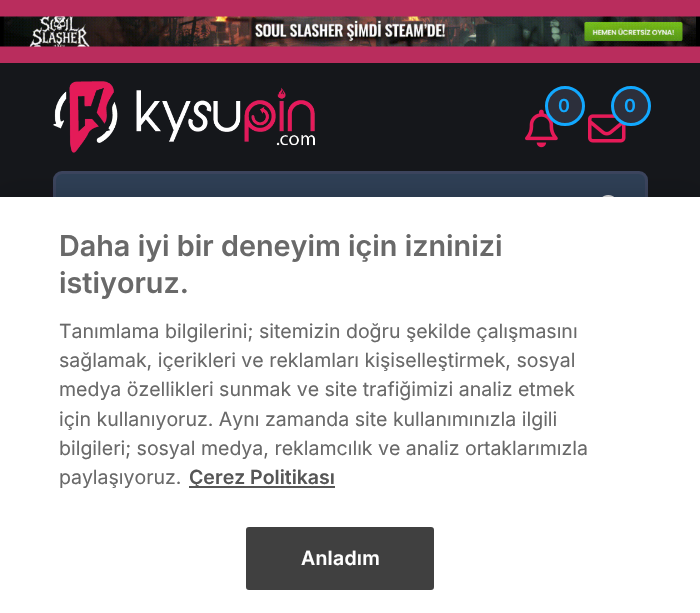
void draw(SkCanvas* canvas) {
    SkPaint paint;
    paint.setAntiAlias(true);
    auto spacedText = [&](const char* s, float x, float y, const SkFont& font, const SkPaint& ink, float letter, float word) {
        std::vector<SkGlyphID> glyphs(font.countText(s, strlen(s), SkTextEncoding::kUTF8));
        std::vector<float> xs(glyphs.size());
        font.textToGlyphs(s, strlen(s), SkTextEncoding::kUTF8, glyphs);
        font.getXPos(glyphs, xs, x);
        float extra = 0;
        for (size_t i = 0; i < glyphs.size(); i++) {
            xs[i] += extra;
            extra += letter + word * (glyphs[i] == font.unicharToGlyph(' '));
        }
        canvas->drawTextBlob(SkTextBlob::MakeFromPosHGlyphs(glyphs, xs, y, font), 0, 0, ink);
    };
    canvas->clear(0xFF15171B);
    paint.setColor(0xFFB92D5D);
    canvas->drawRect(SkRect::MakeXYWH(0, 0, 700, 63), paint);
    canvas->drawImageRect(SkImages::DeferredFromEncodedData(SkData::MakeFromFileName("img1.png")), SkRect::MakeXYWH(0, 16, 700, 31), SkSamplingOptions());
    canvas->drawImageRect(SkImages::DeferredFromEncodedData(SkData::MakeFromFileName("img2.png")), SkRect::MakeXYWH(52, 81, 263, 72), SkSamplingOptions());
    canvas->drawImageRect(SkImages::DeferredFromEncodedData(SkData::MakeFromFileName("img3.png")), SkRect::MakeXYWH(525, 109, 33, 39), SkSamplingOptions());
    paint.setColor(0xFF2C2F3B);
    canvas->drawCircle(565, 106, 18.5f, paint);
    paint.setStyle(SkPaint::kStroke_Style);
    paint.setStrokeWidth(3);
    paint.setColor(0xFF11A8FF);
    canvas->drawCircle(565, 106, 18.5f, paint);
    SkFont font1(fontMgr->matchFamilyStyle("Inter", SkFontStyle(600, SkFontStyle::kNormal_Width, SkFontStyle::kUpright_Slant)), 18);
    font1.setSubpixel(true);
    paint.setStyle(SkPaint::kFill_Style);
    canvas->drawString("0", 558, 112, font1, paint);
    canvas->drawImageRect(SkImages::DeferredFromEncodedData(SkData::MakeFromFileName("img4.png")), SkRect::MakeXYWH(588, 114, 38, 29), SkSamplingOptions());
    paint.setColor(0xFF2C2F3B);
    canvas->drawCircle(631, 106, 18.5f, paint);
    paint.setStyle(SkPaint::kStroke_Style);
    paint.setColor(0xFF11A8FF);
    canvas->drawCircle(631, 106, 18.5f, paint);
    paint.setStyle(SkPaint::kFill_Style);
    canvas->drawString("0", 624, 112, font1, paint);
    paint.setColor(0xFF181520);
    canvas->drawRoundRect(SkRect::MakeXYWH(50, 186, 369, 264), 6, 6, paint);
    paint.setColor(0xFF2F4056);
    canvas->drawRoundRect(SkRect::MakeXYWH(54.5f, 172.5f, 592, 68), 7.5f, 7.5f, paint);
    paint.setStyle(SkPaint::kStroke_Style);
    paint.setColor(0xFF3C455E);
    canvas->drawRoundRect(SkRect::MakeXYWH(54.5f, 172.5f, 592, 68), 7.5f, 7.5f, paint);
    canvas->drawImageRect(SkImages::DeferredFromEncodedData(SkData::MakeFromFileName("img5.png")), SkRect::MakeXYWH(602, 195, 12, 2), SkSamplingOptions());
    paint.setStyle(SkPaint::kFill_Style);
    paint.setColor(0x33000000);
    paint.setMaskFilter(SkMaskFilter::MakeBlur(kNormal_SkBlurStyle, 13.5f));
    canvas->drawRect(SkRect::MakeXYWH(0, 197, 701, 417), paint);
    paint.setMaskFilter(nullptr);
    paint.setColor(0xFFFFFFFF);
    canvas->drawRect(SkRect::MakeXYWH(0, 197, 700, 416), paint);
    SkFont font2(fontMgr->matchFamilyStyle("Inter", SkFontStyle(600, SkFontStyle::kNormal_Width, SkFontStyle::kUpright_Slant)), 28.75f);
    font2.setSubpixel(true);
    paint.setColor(0xFF696969);
    canvas->drawString("Daha iyi bir deneyim için izninizi", 59, 256, font2, paint);
    canvas->drawString("istiyoruz.", 59, 293, font2, paint);
    SkFont font3(fontMgr->matchFamilyStyle("Inter", SkFontStyle::Normal()), 19.5f);
    font3.setSubpixel(true);
    canvas->drawString("Tanımlama bilgilerini; sitemizin doğru şekilde çalışmasını", 59, 338, font3, paint);
    canvas->drawString("sağlamak, içerikleri ve reklamları kişiselleştirmek, sosyal", 59, 367, font3, paint);
    canvas->drawString("medya özellikleri sunmak ve site trafiğimizi analiz etmek", 59, 396, font3, paint);
    canvas->drawString("için kullanıyoruz. Aynı zamanda site kullanımınızla ilgili", 59, 426, font3, paint);
    canvas->drawString("bilgileri; sosyal medya, reklamcılık ve analiz ortaklarımızla", 59, 455, font3, paint);
    canvas->drawString("paylaşıyoruz.", 59, 484, font3, paint);
    paint.setColor(0xFF565656);
    canvas->drawRect(SkRect::MakeXYWH(189, 486, 146, 2), paint);
    SkFont font4(fontMgr->matchFamilyStyle("Inter", SkFontStyle(600, SkFontStyle::kNormal_Width, SkFontStyle::kUpright_Slant)), 19.5f);
    font4.setSubpixel(true);
    canvas->drawString("Çerez Politikası", 189, 484, font4, paint);
    paint.setColor(0xFF404040);
    canvas->drawRoundRect(SkRect::MakeXYWH(247, 528, 186, 61), 2, 2, paint);
    paint.setStyle(SkPaint::kStroke_Style);
    paint.setStrokeWidth(2);
    canvas->drawRoundRect(SkRect::MakeXYWH(247, 528, 186, 61), 2, 2, paint);
    paint.setStyle(SkPaint::kFill_Style);
    paint.setColor(0xFFFFFFFF);
    spacedText("Anladım", 301, 565, font4, paint, 0.25f, 0);
}
